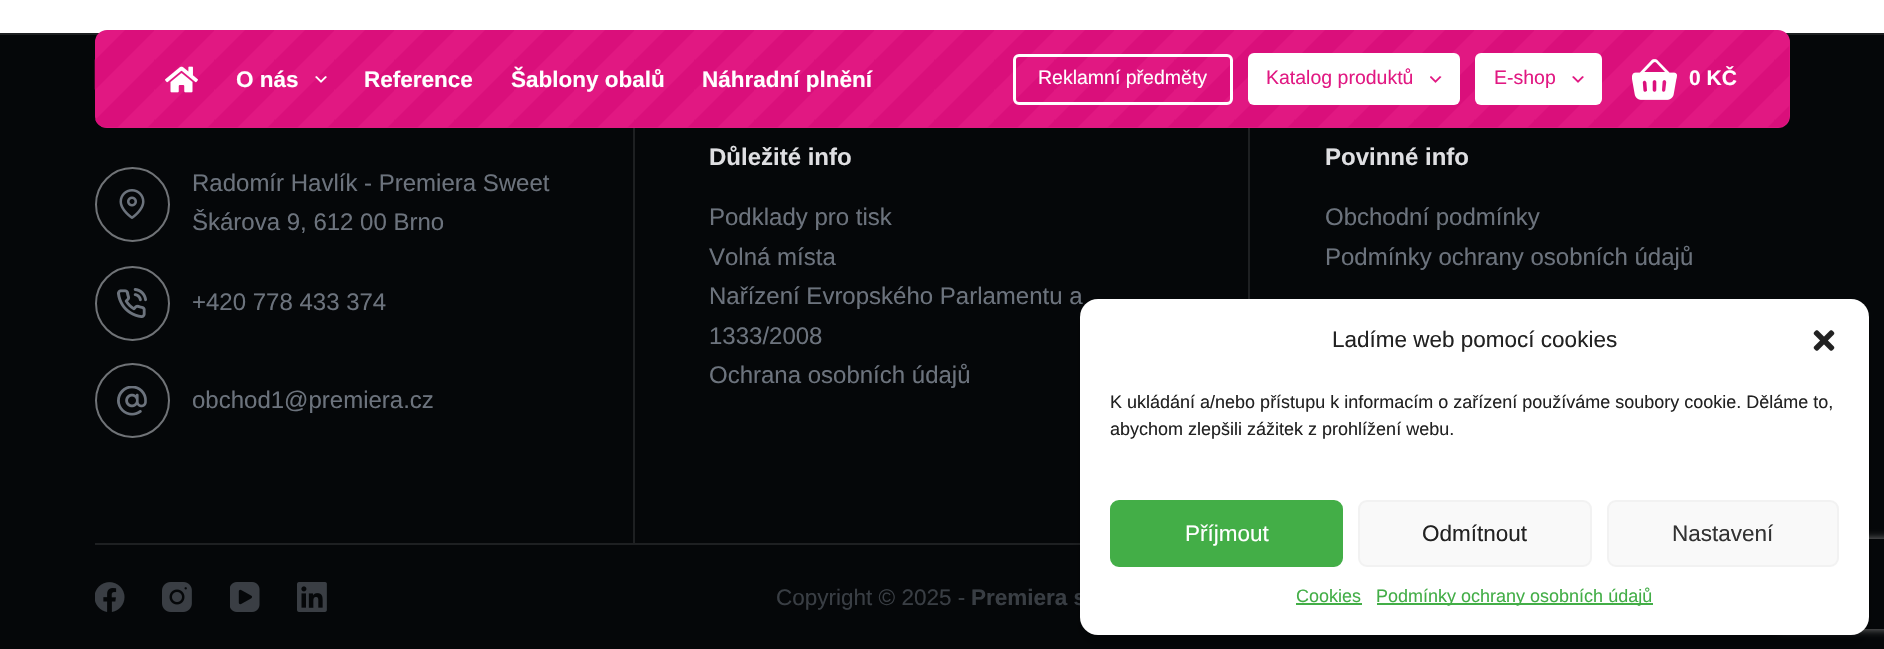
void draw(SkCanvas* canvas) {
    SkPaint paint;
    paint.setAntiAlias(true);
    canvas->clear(0xFFFFFFFF);
    paint.setColor(0xFF050709);
    canvas->drawRect(SkRect::MakeXYWH(0, 35, 1884, 614), paint);
    paint.setColor(0xFF1E2022);
    canvas->drawRect(SkRect::MakeXYWH(0, 33, 1884, 2), paint);
    paint.setColor(0xFFE11882);
    canvas->drawRoundRect(SkRect::MakeXYWH(95, 30, 1695, 98), 12, 12, paint);
    canvas->drawImageRect(SkImages::DeferredFromEncodedData(SkData::MakeFromFileName("img1.png")), SkRect::MakeXYWH(94, 30, 1696, 98), SkSamplingOptions());
    canvas->drawImageRect(SkImages::DeferredFromEncodedData(SkData::MakeFromFileName("img2.png")), SkRect::MakeXYWH(165, 66, 33, 27), SkSamplingOptions());
    SkFont font1(fontMgr->matchFamilyStyle("Liberation Sans", SkFontStyle::Bold()), 22.5f);
    font1.setSubpixel(true);
    paint.setColor(0xFFFFFFFF);
    canvas->drawString("O nás", 236, 87, font1, paint);
    canvas->drawImageRect(SkImages::DeferredFromEncodedData(SkData::MakeFromFileName("img3.png")), SkRect::MakeXYWH(315, 76, 12, 7), SkSamplingOptions());
    canvas->drawString("Reference", 364, 87, font1, paint);
    canvas->drawString("Šablony obalů", 511, 87, font1, paint);
    canvas->drawString("Náhradní plnění", 702, 87, font1, paint);
    paint.setStyle(SkPaint::kStroke_Style);
    paint.setStrokeWidth(3);
    canvas->drawRoundRect(SkRect::MakeXYWH(1014.5f, 55.5f, 217, 48), 4.5f, 4.5f, paint);
    SkFont font2(fontMgr->matchFamilyStyle("Liberation Sans", SkFontStyle::Normal()), 19.5f);
    font2.setSubpixel(true);
    paint.setStyle(SkPaint::kFill_Style);
    canvas->drawString("Reklamní předměty", 1038, 84, font2, paint);
    canvas->drawRoundRect(SkRect::MakeXYWH(1248, 53, 212, 52), 6, 6, paint);
    paint.setColor(0xFFE11882);
    canvas->drawString("Katalog produktů", 1266, 84, font2, paint);
    canvas->drawImageRect(SkImages::DeferredFromEncodedData(SkData::MakeFromFileName("img4.png")), SkRect::MakeXYWH(1430, 76, 12, 7), SkSamplingOptions());
    paint.setColor(0xFFFFFFFF);
    canvas->drawRoundRect(SkRect::MakeXYWH(1475, 53, 127, 52), 6, 6, paint);
    paint.setColor(0xFFE11882);
    canvas->drawString("E-shop", 1494, 84, font2, paint);
    canvas->drawImageRect(SkImages::DeferredFromEncodedData(SkData::MakeFromFileName("img5.png")), SkRect::MakeXYWH(1572, 76, 12, 7), SkSamplingOptions());
    canvas->drawImageRect(SkImages::DeferredFromEncodedData(SkData::MakeFromFileName("img6.png")), SkRect::MakeXYWH(1632, 59, 45, 41), SkSamplingOptions());
    SkFont font3(fontMgr->matchFamilyStyle("Liberation Sans", SkFontStyle::Bold()), 21);
    font3.setSubpixel(true);
    paint.setColor(0xFFFFFFFF);
    canvas->drawString("0 KČ", 1689, 85, font3, paint);
    paint.setStyle(SkPaint::kStroke_Style);
    paint.setStrokeWidth(2);
    paint.setColor(0xFF707377);
    canvas->drawCircle(132.5f, 204.5f, 36.5f, paint);
    canvas->drawImageRect(SkImages::DeferredFromEncodedData(SkData::MakeFromFileName("img7.png")), SkRect::MakeXYWH(119, 189, 26, 30), SkSamplingOptions());
    SkFont font4(fontMgr->matchFamilyStyle("Liberation Sans", SkFontStyle::Normal()), 24);
    font4.setSubpixel(true);
    paint.setStyle(SkPaint::kFill_Style);
    paint.setColor(0xFF6C737D);
    canvas->drawString("Radomír Havlík - Premiera Sweet", 192, 191, font4, paint);
    canvas->drawString("Škárova 9, 612 00 Brno", 192, 230, font4, paint);
    paint.setStyle(SkPaint::kStroke_Style);
    paint.setColor(0xFF707377);
    canvas->drawCircle(132.5f, 303.5f, 36.5f, paint);
    canvas->drawImageRect(SkImages::DeferredFromEncodedData(SkData::MakeFromFileName("img8.png")), SkRect::MakeXYWH(117, 288, 30, 30), SkSamplingOptions());
    paint.setStyle(SkPaint::kFill_Style);
    paint.setColor(0xFF6C737D);
    canvas->drawString("+420 778 433 374", 192, 310, font4, paint);
    paint.setStyle(SkPaint::kStroke_Style);
    paint.setColor(0xFF707377);
    canvas->drawCircle(132.5f, 400.5f, 36.5f, paint);
    canvas->drawImageRect(SkImages::DeferredFromEncodedData(SkData::MakeFromFileName("img9.png")), SkRect::MakeXYWH(117, 386, 30, 30), SkSamplingOptions());
    paint.setStyle(SkPaint::kFill_Style);
    paint.setColor(0xFF6C737D);
    canvas->drawString("obchod1@premiera.cz", 192, 408, font4, paint);
    paint.setColor(0xFF1E2022);
    canvas->drawRect(SkRect::MakeXYWH(633, 128, 2, 415), paint);
    SkFont font5(fontMgr->matchFamilyStyle("Liberation Sans", SkFontStyle::Bold()), 24);
    font5.setSubpixel(true);
    paint.setColor(0xFFDFDFE2);
    canvas->drawString("Důležité info", 709, 165, font5, paint);
    paint.setColor(0xFF6C737D);
    canvas->drawString("Podklady pro tisk", 709, 225, font4, paint);
    canvas->drawString("Volná místa", 709, 265, font4, paint);
    canvas->drawString("Nařízení Evropského Parlamentu a", 709, 304, font4, paint);
    canvas->drawString("1333/2008", 709, 344, font4, paint);
    canvas->drawString("Ochrana osobních údajů", 709, 383, font4, paint);
    paint.setColor(0xFF1E2022);
    canvas->drawRect(SkRect::MakeXYWH(1248, 128, 2, 171), paint);
    paint.setColor(0xFFDFDFE2);
    canvas->drawString("Povinné info", 1325, 165, font5, paint);
    paint.setColor(0xFF6C737D);
    canvas->drawString("Obchodní podmínky", 1325, 225, font4, paint);
    canvas->drawString("Podmínky ochrany osobních údajů", 1325, 265, font4, paint);
    paint.setColor(0xFF1E2022);
    canvas->drawRect(SkRect::MakeXYWH(95, 543, 985, 2), paint);
    canvas->drawImageRect(SkImages::DeferredFromEncodedData(SkData::MakeFromFileName("img10.png")), SkRect::MakeXYWH(95, 582, 30, 30), SkSamplingOptions());
    canvas->drawImageRect(SkImages::DeferredFromEncodedData(SkData::MakeFromFileName("img11.png")), SkRect::MakeXYWH(162, 582, 30, 30), SkSamplingOptions());
    canvas->drawImageRect(SkImages::DeferredFromEncodedData(SkData::MakeFromFileName("img12.png")), SkRect::MakeXYWH(230, 582, 30, 30), SkSamplingOptions());
    canvas->drawImageRect(SkImages::DeferredFromEncodedData(SkData::MakeFromFileName("img13.png")), SkRect::MakeXYWH(297, 582, 30, 30), SkSamplingOptions());
    SkFont font6(fontMgr->matchFamilyStyle("Liberation Sans", SkFontStyle::Normal()), 22.5f);
    font6.setSubpixel(true);
    paint.setColor(0xFF393E44);
    canvas->drawString("Copyright © 2025 -", 776, 605, font6, paint);
    canvas->drawString("Premiera s", 971, 605, font1, paint);
    paint.setColor(0x3B000000);
    paint.setMaskFilter(SkMaskFilter::MakeBlur(kNormal_SkBlurStyle, 4.5f));
    canvas->drawRoundRect(SkRect::MakeXYWH(1080, 308, 789, 336), 18, 18, paint);
    paint.setMaskFilter(nullptr);
    canvas->save();
    canvas->clipPath(SkPathBuilder(SkPathFillType::kEvenOdd).moveTo(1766, 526).lineTo(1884, 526).lineTo(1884, 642).lineTo(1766, 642).close().moveTo(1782, 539).lineTo(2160, 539).cubicTo(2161.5f, 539, 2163, 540.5f, 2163, 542).lineTo(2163, 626).cubicTo(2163, 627.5f, 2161.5f, 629, 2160, 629).lineTo(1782, 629).cubicTo(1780.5f, 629, 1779, 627.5f, 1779, 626).lineTo(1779, 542).cubicTo(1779, 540.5f, 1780.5f, 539, 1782, 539).close().detach(), true);
    paint.setColor(0xFF808080);
    paint.setMaskFilter(SkMaskFilter::MakeBlur(kNormal_SkBlurStyle, 4));
    canvas->drawRoundRect(SkRect::MakeXYWH(1779, 539, 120, 90), 3, 3, paint);
    paint.setMaskFilter(nullptr);
    canvas->restore();
    paint.setColor(0xFFFFFFFF);
    canvas->drawRoundRect(SkRect::MakeXYWH(1080, 299, 789, 336), 18, 18, paint);
    paint.setColor(0xFF222222);
    canvas->drawString("Ladíme web pomocí cookies", 1332, 347, font6, paint);
    canvas->drawImageRect(SkImages::DeferredFromEncodedData(SkData::MakeFromFileName("img14.png")), SkRect::MakeXYWH(1813, 330, 22, 21), SkSamplingOptions());
    SkFont font7(fontMgr->matchFamilyStyle("Liberation Sans", SkFontStyle::Normal()), 18);
    font7.setSubpixel(true);
    canvas->drawString("K ukládání a/nebo přístupu k informacím o zařízení používáme soubory cookie. Děláme to,", 1110, 408, font7, paint);
    canvas->drawString("abychom zlepšili zážitek z prohlížení webu.", 1110, 435, font7, paint);
    paint.setColor(0xFF43AE47);
    canvas->drawRoundRect(SkRect::MakeXYWH(1111, 501, 231, 65), 8, 8, paint);
    paint.setStyle(SkPaint::kStroke_Style);
    canvas->drawRoundRect(SkRect::MakeXYWH(1111, 501, 231, 65), 8, 8, paint);
    paint.setStyle(SkPaint::kFill_Style);
    paint.setColor(0xFFFFFFFF);
    canvas->drawString("Příjmout", 1185, 541, font6, paint);
    paint.setColor(0xFFF9F9F9);
    canvas->drawRoundRect(SkRect::MakeXYWH(1359, 501, 232, 65), 8, 8, paint);
    paint.setStyle(SkPaint::kStroke_Style);
    paint.setColor(0xFFF2F2F2);
    canvas->drawRoundRect(SkRect::MakeXYWH(1359, 501, 232, 65), 8, 8, paint);
    paint.setStyle(SkPaint::kFill_Style);
    paint.setColor(0xFF222222);
    canvas->drawString("Odmítnout", 1422, 541, font6, paint);
    paint.setColor(0xFFF9F9F9);
    canvas->drawRoundRect(SkRect::MakeXYWH(1608, 501, 230, 65), 8, 8, paint);
    paint.setStyle(SkPaint::kStroke_Style);
    paint.setColor(0xFFF2F2F2);
    canvas->drawRoundRect(SkRect::MakeXYWH(1608, 501, 230, 65), 8, 8, paint);
    paint.setStyle(SkPaint::kFill_Style);
    paint.setColor(0xFF333333);
    canvas->drawString("Nastavení", 1672, 541, font6, paint);
    paint.setColor(0xFF43AE47);
    canvas->drawString("Cookies", 1296, 602, font7, paint);
    canvas->drawRect(SkRect::MakeXYWH(1296, 603, 66, 2), paint);
    canvas->drawRect(SkRect::MakeXYWH(1377, 603, 276, 2), paint);
    canvas->drawString("Podmínky ochrany osobních údajů", 1376, 602, font7, paint);
}
